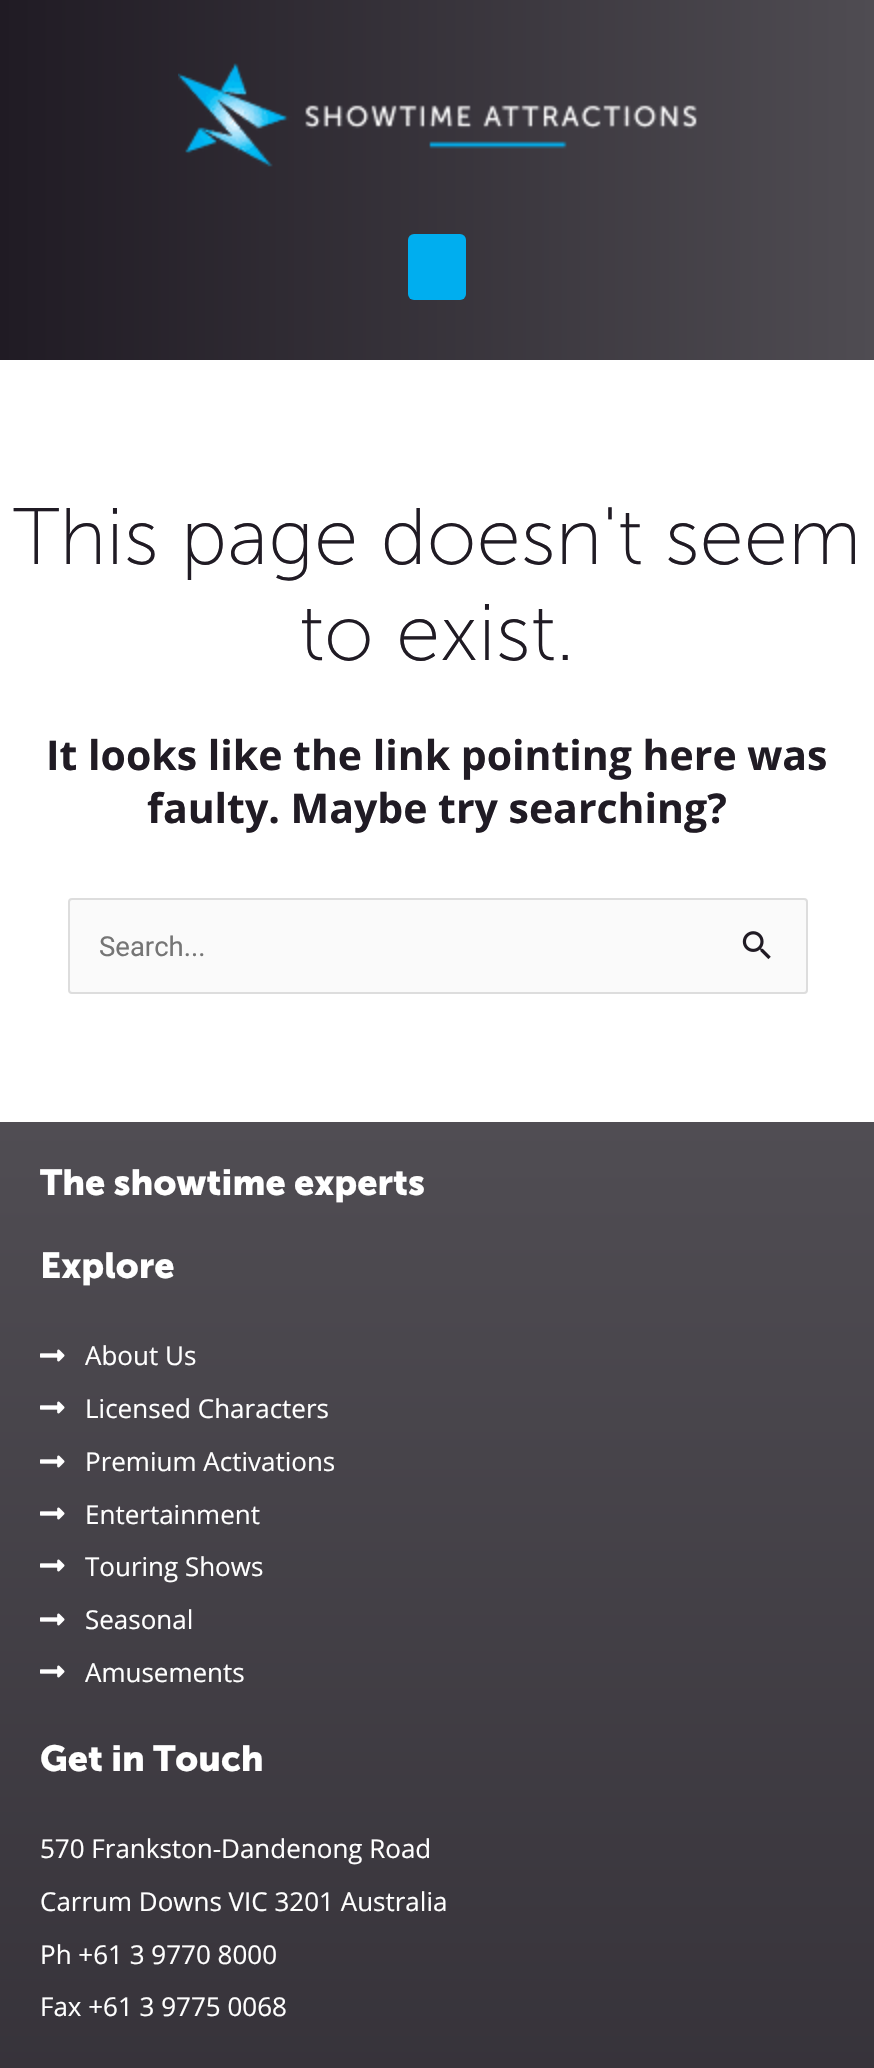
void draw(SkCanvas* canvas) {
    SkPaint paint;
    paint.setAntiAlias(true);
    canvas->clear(0xFFFFFFFF);
    {
        const SkColor colors[] = {0xFF201B24, 0xFF4F4C52};
        const float stops[] = {0, 1};
        const SkPoint ends[] = {{0, 180}, {874, 180}};
        paint.setShader(SkGradientShader::MakeLinear(ends, colors, stops, 2, SkTileMode::kClamp));
        paint.setAlpha(255);
    }
    canvas->drawRect(SkRect::MakeXYWH(0, 0, 874, 360), paint);
    canvas->drawImageRect(SkImages::DeferredFromEncodedData(SkData::MakeFromFileName("img1.png")), SkRect::MakeXYWH(178, 63, 519, 104), SkSamplingOptions());
    paint.setShader(nullptr);
    paint.setColor(0xFF00AEEF);
    canvas->drawRoundRect(SkRect::MakeXYWH(408, 234, 58, 66), 6, 6, paint);
    SkFont font1(fontMgr->matchFamilyStyle("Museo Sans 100", SkFontStyle(300, SkFontStyle::kNormal_Width, SkFontStyle::kUpright_Slant)), 80);
    font1.setSubpixel(true);
    paint.setColor(0xFF201B24);
    canvas->drawString("This page doesn't seem", 13, 564, font1, paint);
    canvas->drawString("to exist.", 299, 660, font1, paint);
    SkFont font2(fontMgr->matchFamilyStyle("Open Sans", SkFontStyle::Bold()), 41);
    font2.setSubpixel(true);
    canvas->drawString("It looks like the link pointing here was", 46, 770, font2, paint);
    canvas->drawString("faulty. Maybe try searching?", 147, 823, font2, paint);
    paint.setColor(0xFFFAFAFA);
    canvas->drawRoundRect(SkRect::MakeXYWH(69, 899, 738, 94), 3, 3, paint);
    paint.setStyle(SkPaint::kStroke_Style);
    paint.setStrokeWidth(2);
    paint.setColor(0xFFDDDDDD);
    canvas->drawRoundRect(SkRect::MakeXYWH(69, 899, 738, 94), 3, 3, paint);
    SkFont font3(fontMgr->matchFamilyStyle("Roboto", SkFontStyle::Normal()), 27.5f);
    font3.setSubpixel(true);
    paint.setStyle(SkPaint::kFill_Style);
    paint.setColor(0xFF757575);
    canvas->drawString("Search...", 99, 956, font3, paint);
    canvas->drawImageRect(SkImages::DeferredFromEncodedData(SkData::MakeFromFileName("img2.png")), SkRect::MakeXYWH(742, 931, 29, 29), SkSamplingOptions());
    {
        const SkColor colors[] = {0xFF504D53, 0xFF242028};
        const float stops[] = {0, 1};
        const SkPoint ends[] = {{437, 1122}, {437, 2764}};
        paint.setShader(SkGradientShader::MakeLinear(ends, colors, stops, 2, SkTileMode::kClamp));
        paint.setAlpha(255);
    }
    canvas->drawRect(SkRect::MakeXYWH(0, 1122, 874, 946), paint);
    SkFont font4(fontMgr->matchFamilyStyle("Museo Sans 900", SkFontStyle::Bold()), 36);
    font4.setSubpixel(true);
    paint.setShader(nullptr);
    paint.setColor(0xFFFFFFFF);
    canvas->drawString("The showtime experts", 40, 1195, font4, paint);
    canvas->drawString("Explore", 40, 1278, font4, paint);
    canvas->drawImageRect(SkImages::DeferredFromEncodedData(SkData::MakeFromFileName("img3.png")), SkRect::MakeXYWH(40, 1349, 25, 13), SkSamplingOptions());
    SkFont font5(fontMgr->matchFamilyStyle("Open Sans", SkFontStyle::Normal()), 26);
    font5.setSubpixel(true);
    canvas->drawString("About Us", 85, 1365, font5, paint);
    canvas->drawImageRect(SkImages::DeferredFromEncodedData(SkData::MakeFromFileName("img4.png")), SkRect::MakeXYWH(40, 1401, 25, 13), SkSamplingOptions());
    canvas->drawString("Licensed Characters", 85, 1418, font5, paint);
    canvas->drawImageRect(SkImages::DeferredFromEncodedData(SkData::MakeFromFileName("img5.png")), SkRect::MakeXYWH(40, 1455, 25, 13), SkSamplingOptions());
    canvas->drawString("Premium Activations", 85, 1471, font5, paint);
    canvas->drawImageRect(SkImages::DeferredFromEncodedData(SkData::MakeFromFileName("img6.png")), SkRect::MakeXYWH(40, 1507, 25, 13), SkSamplingOptions());
    canvas->drawString("Entertainment", 85, 1524, font5, paint);
    canvas->drawImageRect(SkImages::DeferredFromEncodedData(SkData::MakeFromFileName("img7.png")), SkRect::MakeXYWH(40, 1559, 25, 13), SkSamplingOptions());
    canvas->drawString("Touring Shows", 85, 1576, font5, paint);
    canvas->drawImageRect(SkImages::DeferredFromEncodedData(SkData::MakeFromFileName("img8.png")), SkRect::MakeXYWH(40, 1613, 25, 13), SkSamplingOptions());
    canvas->drawString("Seasonal", 85, 1629, font5, paint);
    canvas->drawImageRect(SkImages::DeferredFromEncodedData(SkData::MakeFromFileName("img9.png")), SkRect::MakeXYWH(40, 1665, 25, 13), SkSamplingOptions());
    canvas->drawString("Amusements", 85, 1682, font5, paint);
    canvas->drawString("Get in Touch", 40, 1771, font4, paint);
    canvas->drawString("570 Frankston-Dandenong Road", 40, 1858, font5, paint);
    canvas->drawString("Carrum Downs VIC 3201 Australia", 40, 1911, font5, paint);
    canvas->drawString("Ph +61 3 9770 8000", 40, 1964, font5, paint);
    canvas->drawString("Fax +61 3 9775 0068", 40, 2016, font5, paint);
}
